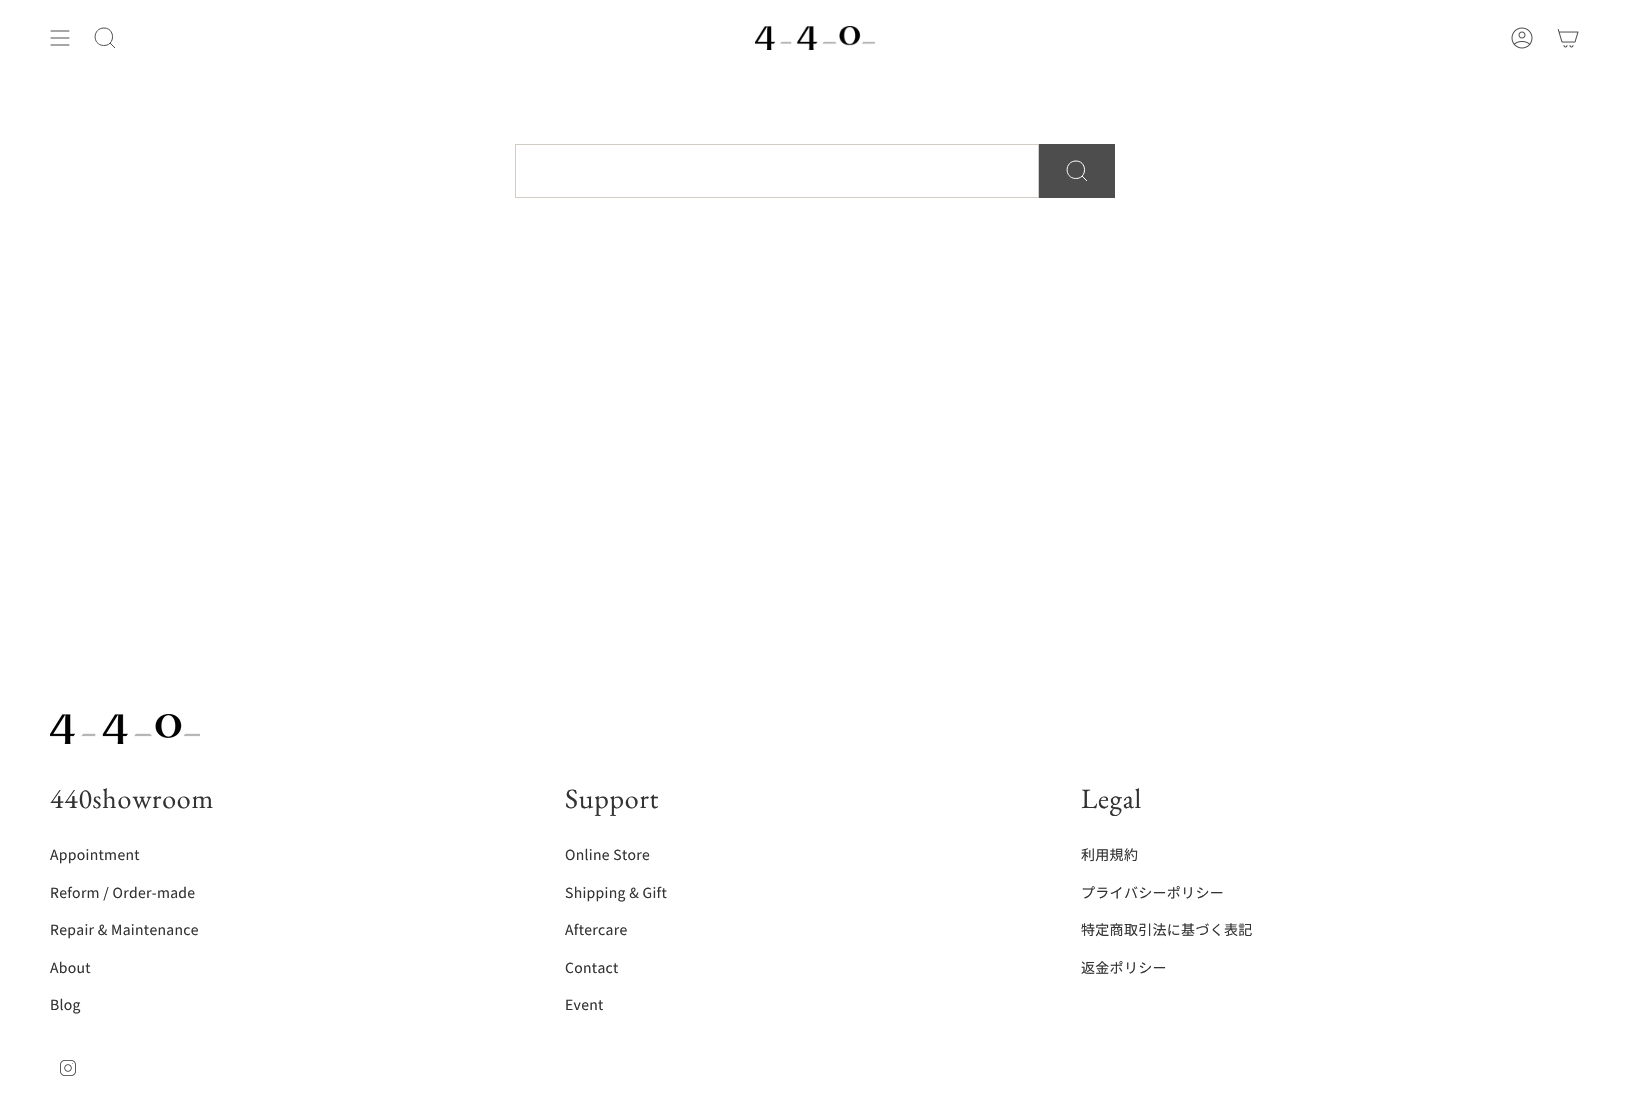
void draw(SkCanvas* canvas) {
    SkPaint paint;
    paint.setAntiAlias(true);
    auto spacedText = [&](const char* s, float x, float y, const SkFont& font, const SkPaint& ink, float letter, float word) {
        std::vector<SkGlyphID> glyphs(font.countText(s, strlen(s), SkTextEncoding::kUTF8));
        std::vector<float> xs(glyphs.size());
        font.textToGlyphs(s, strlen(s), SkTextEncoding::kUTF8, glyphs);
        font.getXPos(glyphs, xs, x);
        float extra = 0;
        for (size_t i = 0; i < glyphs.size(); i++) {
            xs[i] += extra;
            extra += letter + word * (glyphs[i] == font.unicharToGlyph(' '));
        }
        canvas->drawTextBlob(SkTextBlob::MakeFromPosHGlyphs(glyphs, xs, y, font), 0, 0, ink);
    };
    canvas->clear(0xFFFFFFFF);
    paint.setStyle(SkPaint::kStroke_Style);
    paint.setStrokeWidth(1);
    paint.setStrokeCap(SkPaint::kRound_Cap);
    paint.setStrokeJoin(SkPaint::kRound_Join);
    paint.setColor(0xFF4D4D4D);
    canvas->drawPath(SkPathBuilder().moveTo(51, 31).lineTo(69, 31).moveTo(51, 38).lineTo(69, 38).moveTo(51, 45).lineTo(69, 45).detach(), paint);
    paint.setStrokeCap(SkPaint::kButt_Cap);
    paint.setStrokeJoin(SkPaint::kMiter_Join);
    canvas->drawPath(SkPathBuilder().moveTo(104, 28).cubicTo(115.5f, 28, 115.5f, 46, 103.5f, 45.5f).cubicTo(92, 45, 92.5f, 28, 104, 28).close().moveTo(110, 43).lineTo(115, 48).detach(), paint);
    canvas->drawImageRect(SkImages::DeferredFromEncodedData(SkData::MakeFromFileName("img1.png")), SkRect::MakeXYWH(755, 26, 120, 24), SkSamplingOptions());
    canvas->drawImageRect(SkImages::DeferredFromEncodedData(SkData::MakeFromFileName("img2.png")), SkRect::MakeXYWH(1511, 27, 22, 22), SkSamplingOptions());
    canvas->drawImageRect(SkImages::DeferredFromEncodedData(SkData::MakeFromFileName("img3.png")), SkRect::MakeXYWH(1557, 29, 22, 19), SkSamplingOptions());
    paint.setColor(0xFFD1CDC4);
    canvas->drawRect(SkRect::MakeXYWH(515.5f, 144.5f, 523, 53), paint);
    paint.setStyle(SkPaint::kFill_Style);
    paint.setColor(0xFF4D4D4D);
    canvas->drawRect(SkRect::MakeXYWH(1039, 144, 76, 54), paint);
    paint.setStyle(SkPaint::kStroke_Style);
    paint.setColor(0xFFFFFFFF);
    canvas->drawPath(SkPathBuilder().moveTo(1076, 161).cubicTo(1087.5f, 161, 1087.5f, 179, 1075.5f, 178.5f).cubicTo(1064, 178, 1064.5f, 161, 1076, 161).close().moveTo(1082, 176).lineTo(1087, 181).detach(), paint);
    canvas->drawImageRect(SkImages::DeferredFromEncodedData(SkData::MakeFromFileName("img4.png")), SkRect::MakeXYWH(50, 714, 150, 30), SkSamplingOptions());
    SkFont font1(fontMgr->matchFamilyStyle("EB Garamond", SkFontStyle::Normal()), 28);
    font1.setSubpixel(true);
    paint.setStyle(SkPaint::kFill_Style);
    paint.setColor(0xFF333333);
    spacedText("440showroom", 50, 808, font1, paint, 0.75f, 0);
    SkFont font2(fontMgr->matchFamilyStyle("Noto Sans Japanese", SkFontStyle::Normal()), 14);
    font2.setSubpixel(true);
    spacedText("Appointment", 50, 860, font2, paint, 0.3f, 0);
    spacedText("Reform / Order-made", 50, 898, font2, paint, 0.3f, 0);
    spacedText("Repair & Maintenance", 50, 935, font2, paint, 0.3f, 0);
    spacedText("About", 50, 973, font2, paint, 0.3f, 0);
    spacedText("Blog", 50, 1010, font2, paint, 0.3f, 0);
    spacedText("Support", 565, 808, font1, paint, 0.75f, 0);
    spacedText("Online Store", 565, 860, font2, paint, 0.3f, 0);
    spacedText("Shipping & Gift", 565, 898, font2, paint, 0.3f, 0);
    spacedText("Aftercare", 565, 935, font2, paint, 0.3f, 0);
    spacedText("Contact", 565, 973, font2, paint, 0.3f, 0);
    spacedText("Event", 565, 1010, font2, paint, 0.3f, 0);
    spacedText("Legal", 1081, 808, font1, paint, 0.75f, 0);
    spacedText("利用規約", 1081, 860, font2, paint, 0.3f, 0);
    spacedText("プライバシーポリシー", 1081, 898, font2, paint, 0.3f, 0);
    spacedText("特定商取引法に基づく表記", 1081, 935, font2, paint, 0.3f, 0);
    spacedText("返金ポリシー", 1081, 973, font2, paint, 0.3f, 0);
    canvas->drawImageRect(SkImages::DeferredFromEncodedData(SkData::MakeFromFileName("img5.png")), SkRect::MakeXYWH(60, 1060, 16, 16), SkSamplingOptions());
}
